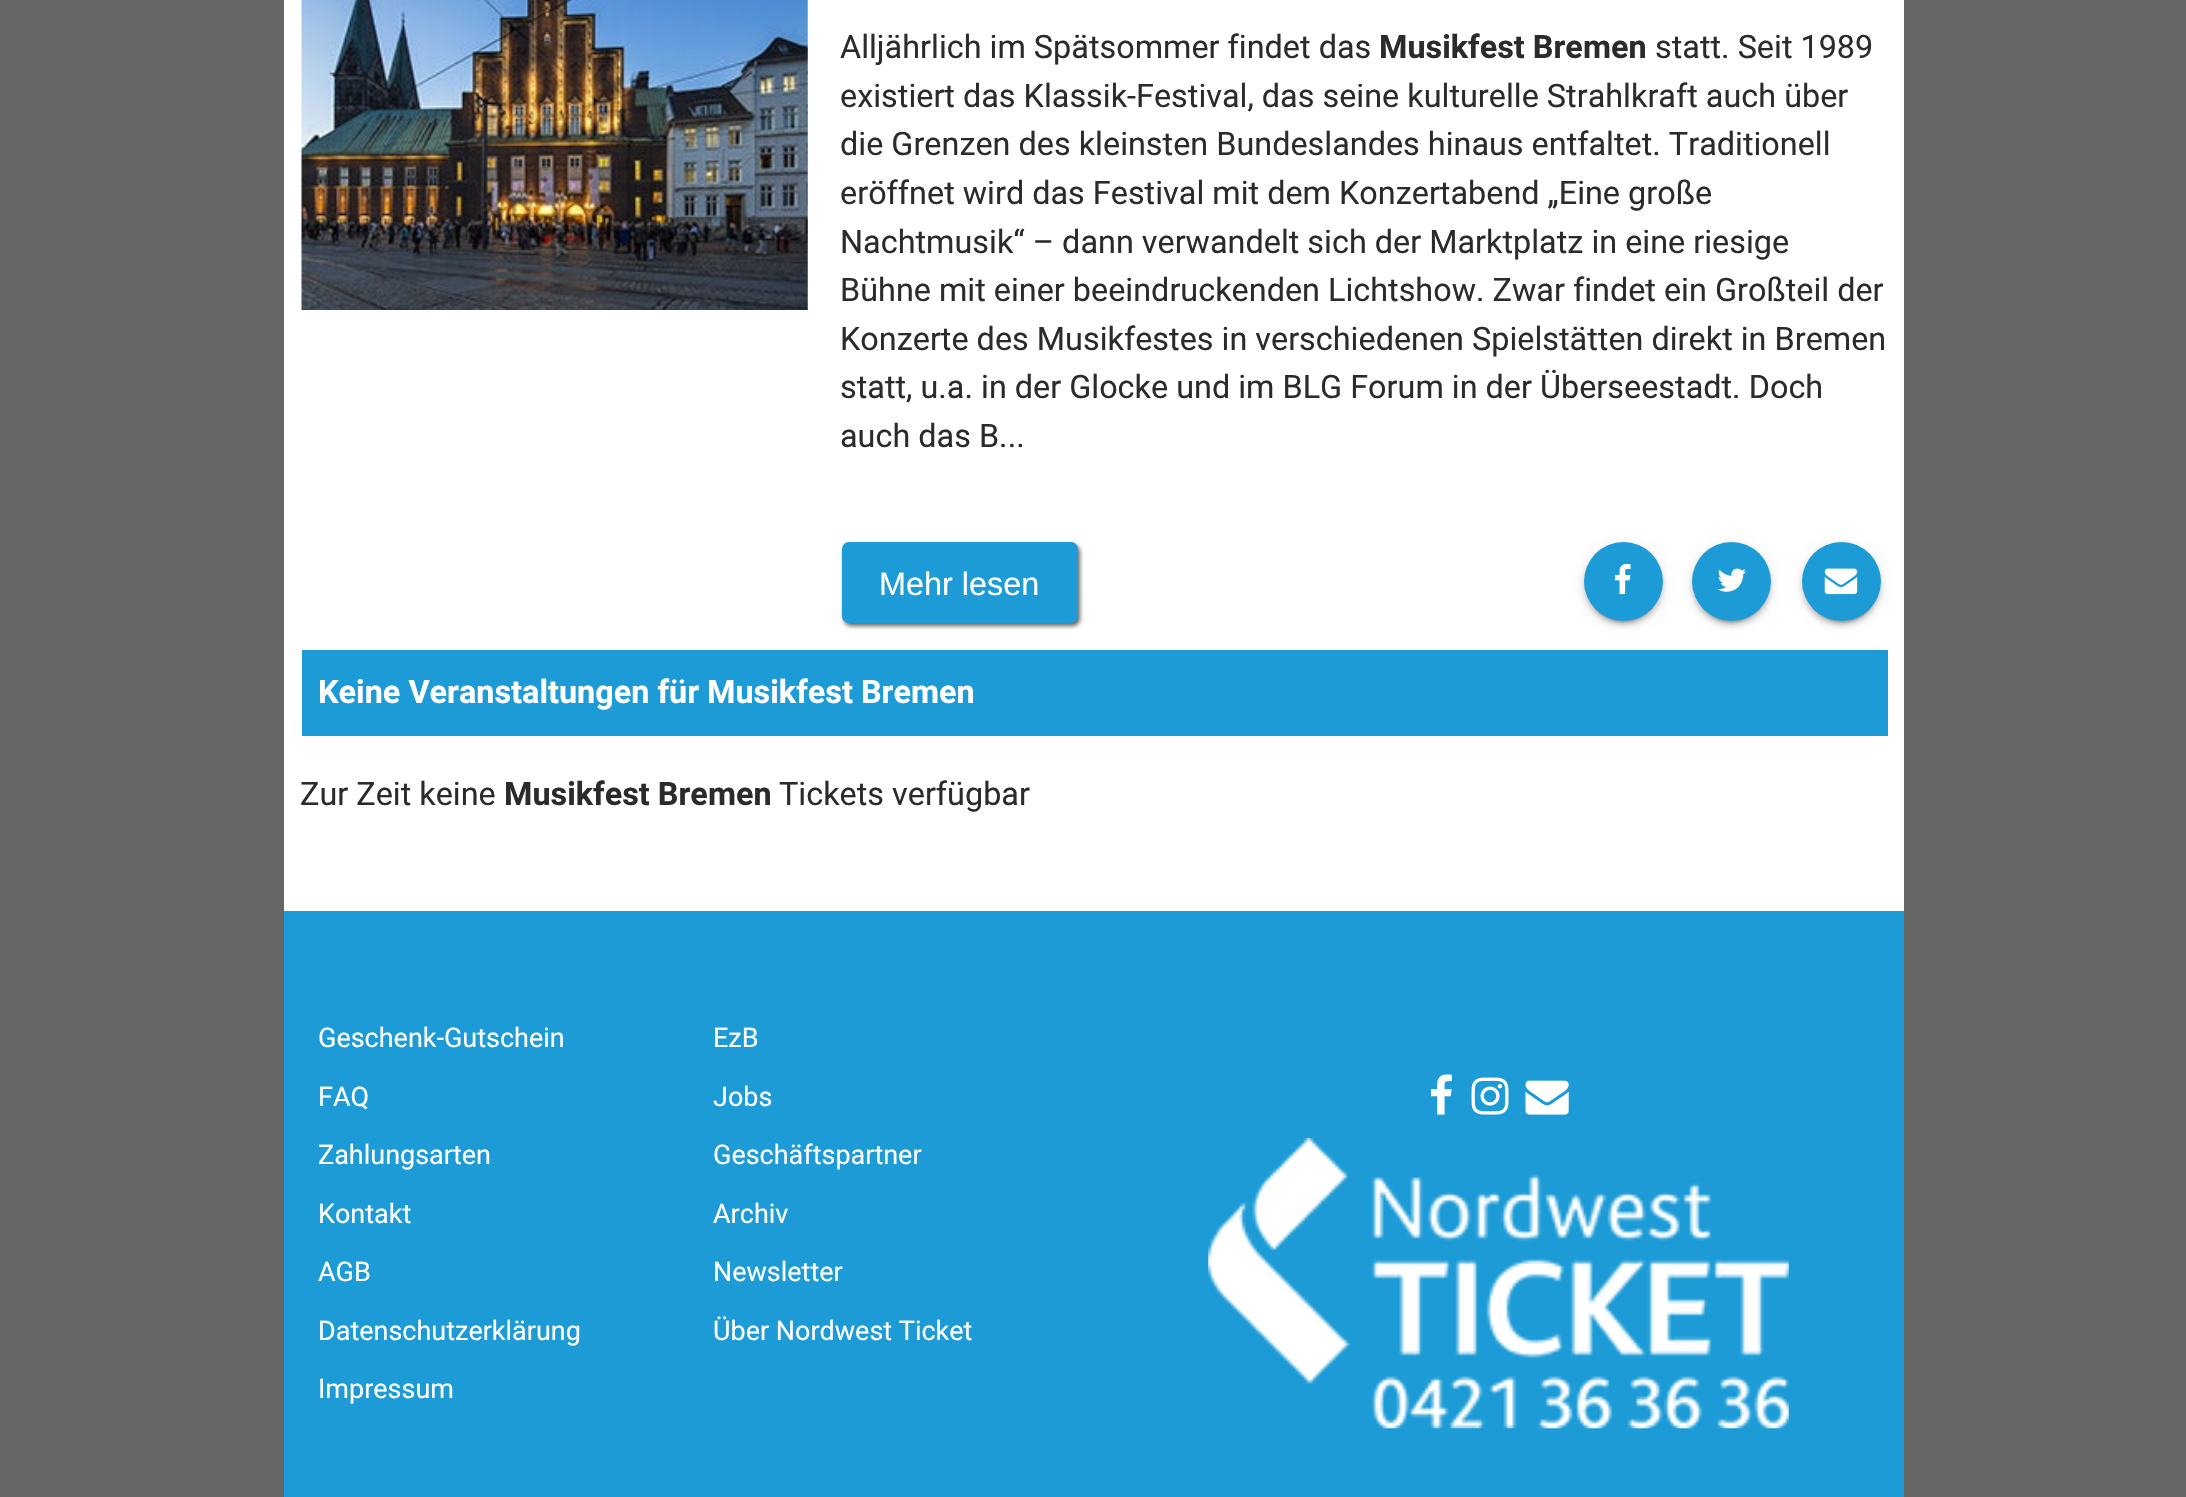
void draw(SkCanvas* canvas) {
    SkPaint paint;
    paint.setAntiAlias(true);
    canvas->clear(0xFF666666);
    paint.setColor(0xFFFFFFFF);
    canvas->drawRect(SkRect::MakeXYWH(284, 0, 1620, 911), paint);
    canvas->drawImageRect(SkImages::DeferredFromEncodedData(SkData::MakeFromFileName("img1.png")), SkRect::MakeXYWH(301, 0, 507, 310), SkSamplingOptions());
    SkFont font1(fontMgr->matchFamilyStyle("Roboto", SkFontStyle::Normal()), 32.4f);
    font1.setSubpixel(true);
    paint.setColor(0xFF292B2C);
    canvas->drawString("Alljährlich im Spätsommer findet das", 840, 58, font1, paint);
    SkFont font2(fontMgr->matchFamilyStyle("Roboto", SkFontStyle::Bold()), 32.4f);
    font2.setSubpixel(true);
    canvas->drawString("Musikfest Bremen", 1379, 58, font2, paint);
    canvas->drawString("statt. Seit 1989", 1655, 58, font1, paint);
    canvas->drawString("existiert das Klassik-Festival, das seine kulturelle Strahlkraft auch über", 840, 107, font1, paint);
    canvas->drawString("die Grenzen des kleinsten Bundeslandes hinaus entfaltet. Traditionell", 840, 155, font1, paint);
    canvas->drawString("eröffnet wird das Festival mit dem Konzertabend „Eine große", 840, 204, font1, paint);
    canvas->drawString("Nachtmusik“ – dann verwandelt sich der Marktplatz in eine riesige", 840, 253, font1, paint);
    canvas->drawString("Bühne mit einer beeindruckenden Lichtshow. Zwar findet ein Großteil der", 840, 301, font1, paint);
    canvas->drawString("Konzerte des Musikfestes in verschiedenen Spielstätten direkt in Bremen", 840, 350, font1, paint);
    canvas->drawString("statt, u.a. in der Glocke und im BLG Forum in der Überseestadt. Doch", 840, 398, font1, paint);
    canvas->drawString("auch das B...", 840, 447, font1, paint);
    paint.setColor(0xFF666666);
    paint.setMaskFilter(SkMaskFilter::MakeBlur(kNormal_SkBlurStyle, 2));
    canvas->drawRoundRect(SkRect::MakeXYWH(844, 545, 236, 81), 7, 7, paint);
    paint.setMaskFilter(nullptr);
    paint.setColor(0xFF1C9BD7);
    canvas->drawRoundRect(SkRect::MakeXYWH(843, 543, 234, 79), 6, 6, paint);
    paint.setStyle(SkPaint::kStroke_Style);
    paint.setStrokeWidth(2);
    canvas->drawRoundRect(SkRect::MakeXYWH(843, 543, 234, 79), 6, 6, paint);
    SkFont font3(fontMgr->matchFamilyStyle("Liberation Sans", SkFontStyle::Normal()), 32.4f);
    font3.setSubpixel(true);
    paint.setStyle(SkPaint::kFill_Style);
    paint.setColor(0xFFFFFFFF);
    canvas->drawString("Mehr lesen", 879, 595, font3, paint);
    paint.setColor(0x33000000);
    paint.setMaskFilter(SkMaskFilter::MakeBlur(kNormal_SkBlurStyle, 1));
    canvas->drawRoundRect(SkRect::MakeXYWH(1589, 554, 69, 69), 34.5f, 34.5f, paint);
    paint.setMaskFilter(nullptr);
    paint.setColor(0x1F000000);
    paint.setMaskFilter(SkMaskFilter::MakeBlur(kNormal_SkBlurStyle, 5.5f));
    canvas->drawRoundRect(SkRect::MakeXYWH(1584, 545, 79, 78), 39, 39, paint);
    paint.setMaskFilter(nullptr);
    paint.setColor(0x24000000);
    paint.setMaskFilter(SkMaskFilter::MakeBlur(kNormal_SkBlurStyle, 2));
    canvas->drawRoundRect(SkRect::MakeXYWH(1584, 547, 79, 79), 39.5f, 39.5f, paint);
    paint.setMaskFilter(nullptr);
    paint.setColor(0xFF1C9BD7);
    canvas->drawCircle(1623.5f, 581.5f, 39.5f, paint);
    canvas->drawImageRect(SkImages::DeferredFromEncodedData(SkData::MakeFromFileName("img2.png")), SkRect::MakeXYWH(1614, 564, 17, 31), SkSamplingOptions());
    paint.setColor(0x33000000);
    paint.setMaskFilter(SkMaskFilter::MakeBlur(kNormal_SkBlurStyle, 1));
    canvas->drawRoundRect(SkRect::MakeXYWH(1697, 554, 69, 69), 34.5f, 34.5f, paint);
    paint.setMaskFilter(nullptr);
    paint.setColor(0x1F000000);
    paint.setMaskFilter(SkMaskFilter::MakeBlur(kNormal_SkBlurStyle, 5.5f));
    canvas->drawRoundRect(SkRect::MakeXYWH(1692, 545, 79, 78), 39, 39, paint);
    paint.setMaskFilter(nullptr);
    paint.setColor(0x24000000);
    paint.setMaskFilter(SkMaskFilter::MakeBlur(kNormal_SkBlurStyle, 2));
    canvas->drawRoundRect(SkRect::MakeXYWH(1692, 547, 79, 79), 39.5f, 39.5f, paint);
    paint.setMaskFilter(nullptr);
    paint.setColor(0xFF1C9BD7);
    canvas->drawCircle(1731.5f, 581.5f, 39.5f, paint);
    canvas->drawImageRect(SkImages::DeferredFromEncodedData(SkData::MakeFromFileName("img3.png")), SkRect::MakeXYWH(1717, 568, 29, 24), SkSamplingOptions());
    paint.setColor(0x33000000);
    paint.setMaskFilter(SkMaskFilter::MakeBlur(kNormal_SkBlurStyle, 1));
    canvas->drawRoundRect(SkRect::MakeXYWH(1807, 554, 70, 69), 34.5f, 34.5f, paint);
    paint.setMaskFilter(nullptr);
    paint.setColor(0x1F000000);
    paint.setMaskFilter(SkMaskFilter::MakeBlur(kNormal_SkBlurStyle, 5.5f));
    canvas->drawRoundRect(SkRect::MakeXYWH(1802, 545, 79, 78), 39, 39, paint);
    paint.setMaskFilter(nullptr);
    paint.setColor(0x24000000);
    paint.setMaskFilter(SkMaskFilter::MakeBlur(kNormal_SkBlurStyle, 2));
    canvas->drawRoundRect(SkRect::MakeXYWH(1802, 547, 79, 79), 39.5f, 39.5f, paint);
    paint.setMaskFilter(nullptr);
    paint.setColor(0xFF1C9BD7);
    canvas->drawCircle(1841.5f, 581.5f, 39.5f, paint);
    canvas->drawImageRect(SkImages::DeferredFromEncodedData(SkData::MakeFromFileName("img4.png")), SkRect::MakeXYWH(1824, 568, 34, 27), SkSamplingOptions());
    canvas->drawRect(SkRect::MakeXYWH(302, 650, 1586, 86), paint);
    paint.setColor(0xFFFFFFFF);
    canvas->drawString("Keine Veranstaltungen für Musikfest Bremen", 318, 703, font2, paint);
    paint.setColor(0xFF292B2C);
    canvas->drawString("Zur Zeit keine", 300, 805, font1, paint);
    canvas->drawString("Musikfest Bremen", 504, 805, font2, paint);
    canvas->drawString("Tickets verfügbar", 779, 805, font1, paint);
    paint.setColor(0xFF1C9BD7);
    canvas->drawRect(SkRect::MakeXYWH(284, 911, 1620, 586), paint);
    SkFont font4(fontMgr->matchFamilyStyle("Roboto", SkFontStyle::Normal()), 27);
    font4.setSubpixel(true);
    paint.setColor(0xFFFFFFFF);
    canvas->drawString("Geschenk-Gutschein", 318, 1047, font4, paint);
    canvas->drawString("EzB", 713, 1047, font4, paint);
    canvas->drawString("FAQ", 318, 1106, font4, paint);
    canvas->drawString("Jobs", 713, 1106, font4, paint);
    canvas->drawString("Zahlungsarten", 318, 1164, font4, paint);
    canvas->drawString("Geschäftspartner", 713, 1164, font4, paint);
    canvas->drawString("Kontakt", 318, 1223, font4, paint);
    canvas->drawString("Archiv", 713, 1223, font4, paint);
    canvas->drawString("AGB", 318, 1281, font4, paint);
    canvas->drawString("Newsletter", 713, 1281, font4, paint);
    canvas->drawString("Datenschutzerklärung", 318, 1340, font4, paint);
    canvas->drawString("Über Nordwest Ticket", 713, 1340, font4, paint);
    canvas->drawString("Impressum", 318, 1398, font4, paint);
    canvas->drawImageRect(SkImages::DeferredFromEncodedData(SkData::MakeFromFileName("img5.png")), SkRect::MakeXYWH(1431, 1074, 21, 41), SkSamplingOptions());
    canvas->drawImageRect(SkImages::DeferredFromEncodedData(SkData::MakeFromFileName("img6.png")), SkRect::MakeXYWH(1471, 1077, 38, 38), SkSamplingOptions());
    canvas->drawImageRect(SkImages::DeferredFromEncodedData(SkData::MakeFromFileName("img7.png")), SkRect::MakeXYWH(1525, 1080, 44, 35), SkSamplingOptions());
    canvas->drawImageRect(SkImages::DeferredFromEncodedData(SkData::MakeFromFileName("img8.png")), SkRect::MakeXYWH(1208, 1138, 581, 291), SkSamplingOptions());
}
